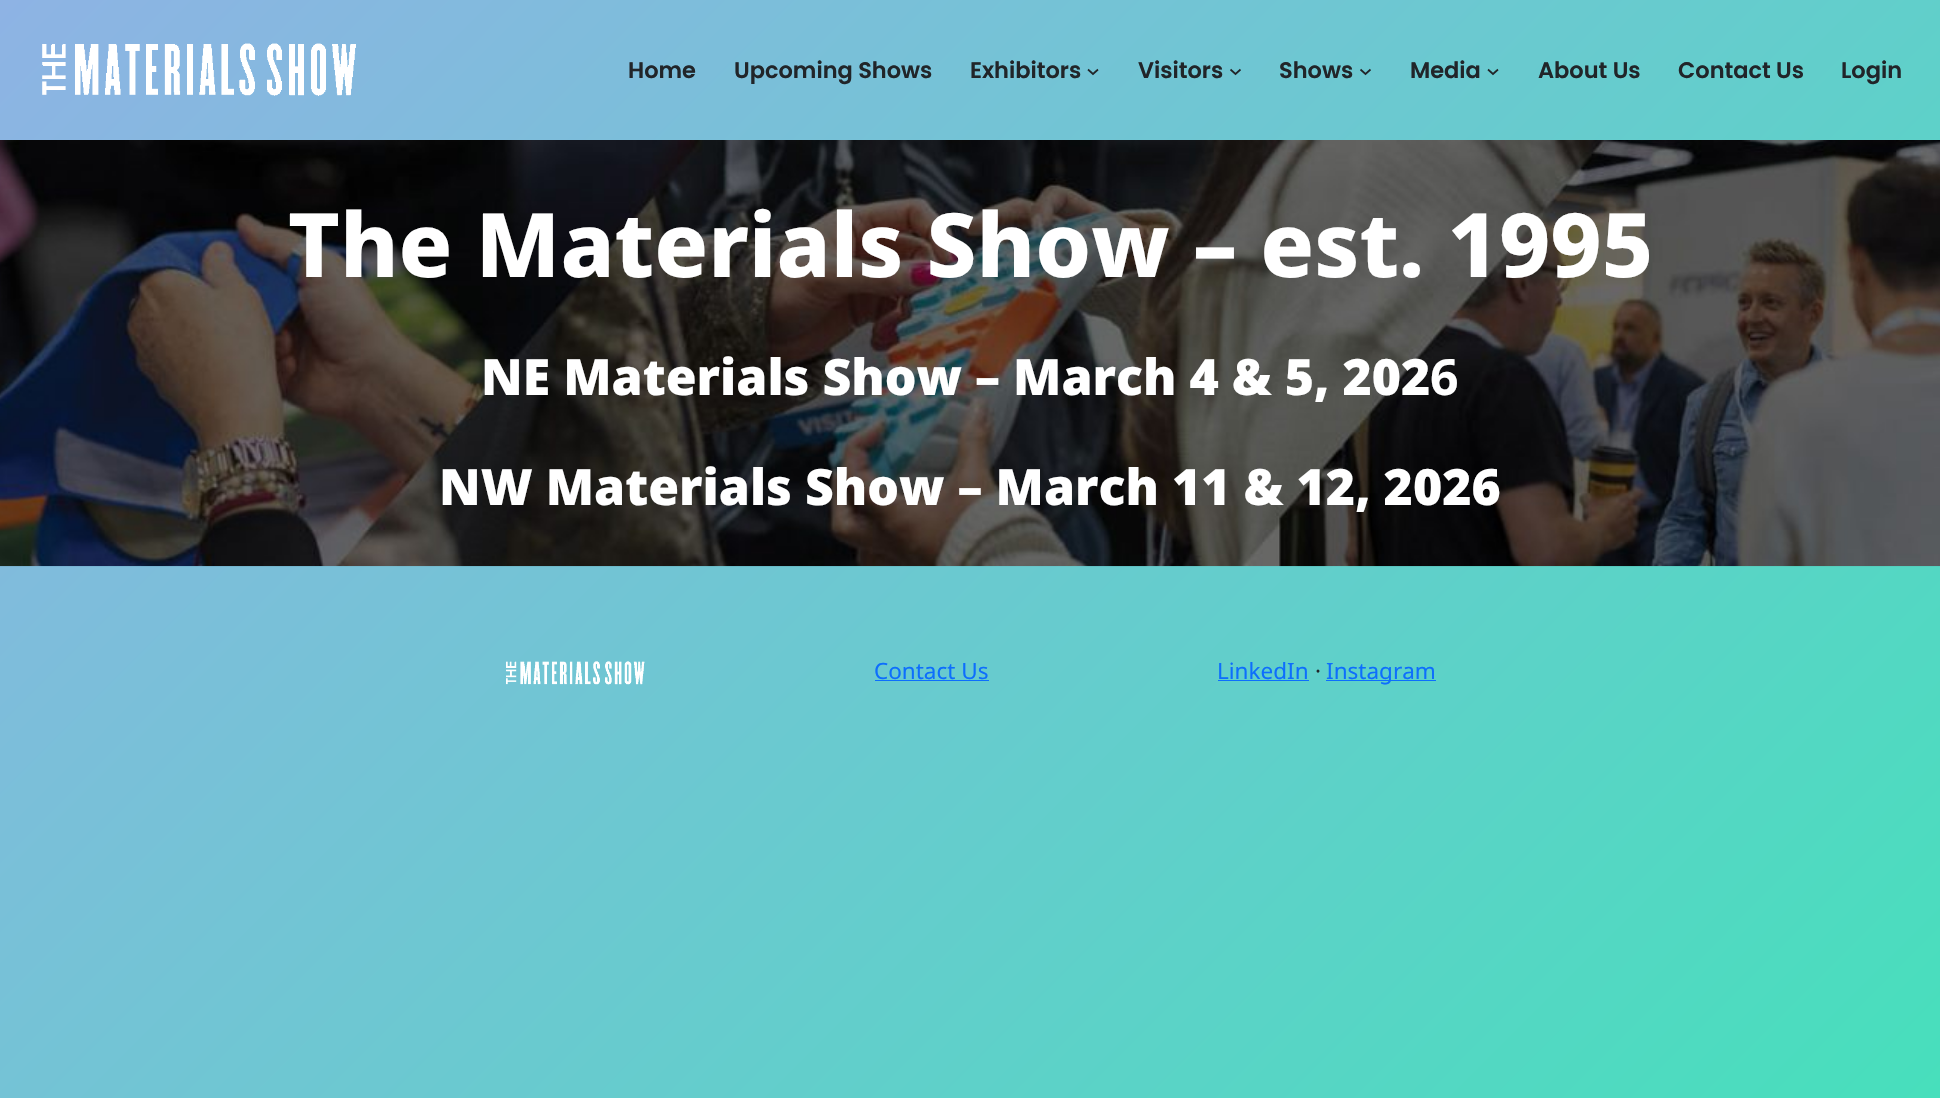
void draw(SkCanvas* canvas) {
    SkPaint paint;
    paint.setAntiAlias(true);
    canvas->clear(0xFFFFFFFF);
    {
        const SkColor colors[] = {0xFF8EB3E4, 0xFF47DFBC};
        const float stops[] = {0, 1};
        const SkPoint ends[] = {{210, -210}, {1730, 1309}};
        paint.setShader(SkGradientShader::MakeLinear(ends, colors, stops, 2, SkTileMode::kClamp));
        paint.setAlpha(255);
    }
    canvas->drawRect(SkRect::MakeXYWH(0, 0, 1940, 1098), paint);
    canvas->drawImageRect(SkImages::DeferredFromEncodedData(SkData::MakeFromFileName("img1.png")), SkRect::MakeXYWH(42, 43, 314, 53), SkSamplingOptions());
    SkFont font1(fontMgr->matchFamilyStyle("Poppins", SkFontStyle(600, SkFontStyle::kNormal_Width, SkFontStyle::kUpright_Slant)), 22.5f);
    font1.setSubpixel(true);
    paint.setShader(nullptr);
    paint.setColor(0xFF212529);
    canvas->drawString("Home", 628, 78, font1, paint);
    canvas->drawString("Upcoming Shows", 734, 78, font1, paint);
    canvas->drawString("Exhibitors", 970, 78, font1, paint);
    paint.setStyle(SkPaint::kStroke_Style);
    paint.setStrokeWidth(1.7f);
    canvas->drawPath(SkPathBuilder().moveTo(1088, 69.5f).lineTo(1093, 74).lineTo(1098, 69.5f).detach(), paint);
    paint.setStyle(SkPaint::kFill_Style);
    canvas->drawString("Visitors", 1138, 78, font1, paint);
    paint.setStyle(SkPaint::kStroke_Style);
    canvas->drawPath(SkPathBuilder().moveTo(1230.5f, 69.5f).lineTo(1235.5f, 74).lineTo(1240.5f, 69.5f).detach(), paint);
    paint.setStyle(SkPaint::kFill_Style);
    canvas->drawString("Shows", 1279, 78, font1, paint);
    paint.setStyle(SkPaint::kStroke_Style);
    canvas->drawPath(SkPathBuilder().moveTo(1360.5f, 69.5f).lineTo(1365.5f, 74).lineTo(1370.5f, 69.5f).detach(), paint);
    paint.setStyle(SkPaint::kFill_Style);
    canvas->drawString("Media", 1410, 78, font1, paint);
    paint.setStyle(SkPaint::kStroke_Style);
    canvas->drawPath(SkPathBuilder().moveTo(1488, 69.5f).lineTo(1493, 74).lineTo(1498, 69.5f).detach(), paint);
    paint.setStyle(SkPaint::kFill_Style);
    canvas->drawString("About Us", 1538, 78, font1, paint);
    canvas->drawString("Contact Us", 1678, 78, font1, paint);
    canvas->drawString("Login", 1841, 78, font1, paint);
    canvas->drawImageRect(SkImages::DeferredFromEncodedData(SkData::MakeFromFileName("img2.png")), SkRect::MakeXYWH(0, 140, 1940, 427), SkSamplingOptions());
    SkFont font2(fontMgr->matchFamilyStyle("Noto Sans", SkFontStyle(800, SkFontStyle::kNormal_Width, SkFontStyle::kUpright_Slant)), 88.9f);
    font2.setSubpixel(true);
    paint.setColor(0xFFFFFFFF);
    canvas->drawString("The Materials Show – est. 1995", 288, 277, font2, paint);
    SkFont font3(fontMgr->matchFamilyStyle("Noto Sans", SkFontStyle(900, SkFontStyle::kNormal_Width, SkFontStyle::kUpright_Slant)), 50);
    font3.setSubpixel(true);
    canvas->drawString("NE Materials Show – March 4 & 5, 202", 481, 395, font3, paint);
    SkFont font4(fontMgr->matchFamilyStyle("Noto Sans", SkFontStyle::Bold()), 50);
    font4.setSubpixel(true);
    canvas->drawString("6", 1430, 395, font4, paint);
    canvas->drawString("NW Materials Show – March 11 & 12, 2026", 439, 505, font3, paint);
    canvas->drawImageRect(SkImages::DeferredFromEncodedData(SkData::MakeFromFileName("img3.png")), SkRect::MakeXYWH(506, 661, 139, 24), SkSamplingOptions());
    SkFont font5(fontMgr->matchFamilyStyle("Noto Sans", SkFontStyle::Normal()), 22.5f);
    font5.setSubpixel(true);
    paint.setColor(0xFF0D6EFD);
    canvas->drawString("Contact Us", 874, 679, font5, paint);
    canvas->drawRect(SkRect::MakeXYWH(875, 680, 114, 1), paint);
    canvas->drawString("LinkedIn", 1217, 679, font5, paint);
    canvas->drawRect(SkRect::MakeXYWH(1218, 680, 91, 1), paint);
    paint.setColor(0xFF212529);
    canvas->drawString("·", 1315, 679, font5, paint);
    paint.setColor(0xFF0D6EFD);
    canvas->drawRect(SkRect::MakeXYWH(1326, 680, 110, 1), paint);
    canvas->drawString("Instagram", 1326, 679, font5, paint);
}
